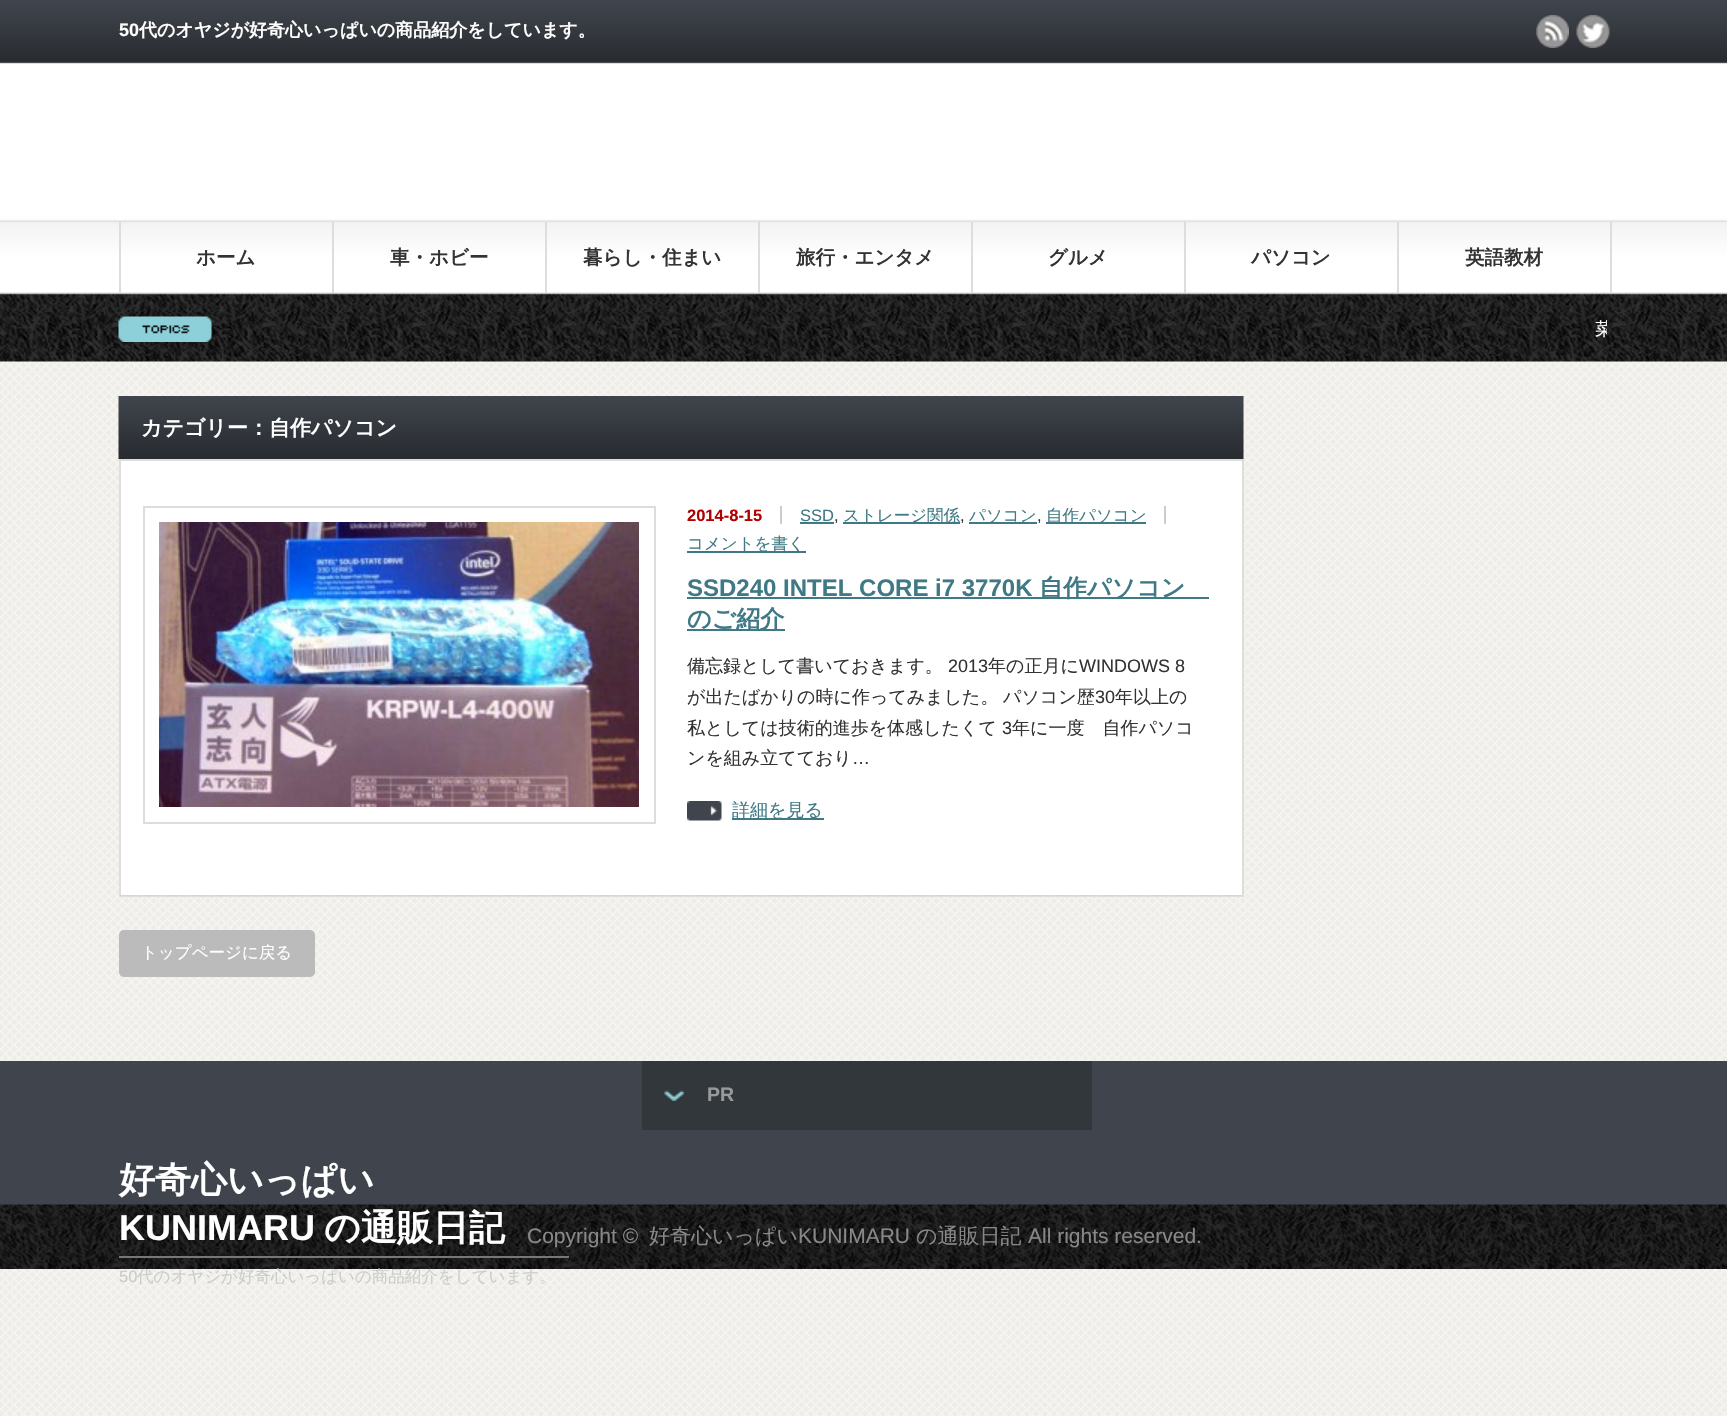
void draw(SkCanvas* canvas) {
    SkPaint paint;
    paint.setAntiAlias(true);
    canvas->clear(0xFFFFFFFF);
    canvas->drawImageRect(SkImages::DeferredFromEncodedData(SkData::MakeFromFileName("img1.png")), SkRect::MakeXYWH(0, 361, 1727, 1055), SkSamplingOptions());
    canvas->drawImageRect(SkImages::DeferredFromEncodedData(SkData::MakeFromFileName("img2.png")), SkRect::MakeXYWH(0, 0, 1727, 362), SkSamplingOptions());
    SkFont font1(fontMgr->matchFamilyStyle("Liberation Sans", SkFontStyle::Bold()), 18);
    font1.setSubpixel(true);
    paint.setColor(0xFFFFFFFF);
    canvas->drawString("50", 119, 36, font1, paint);
    SkFont font2(fontMgr->matchFamilyStyle("WenQuanYi Zen Hei", SkFontStyle::Bold()), 18);
    font2.setSubpixel(true);
    canvas->drawString("代のオヤジが好奇心いっぱいの商品紹介をしています。", 139, 36, font2, paint);
    canvas->drawImageRect(SkImages::DeferredFromEncodedData(SkData::MakeFromFileName("img3.png")), SkRect::MakeXYWH(1536, 15, 33, 33), SkSamplingOptions());
    canvas->drawImageRect(SkImages::DeferredFromEncodedData(SkData::MakeFromFileName("img4.png")), SkRect::MakeXYWH(1576, 15, 34, 33), SkSamplingOptions());
    paint.setColor(0xFFDDDDDD);
    canvas->drawRect(SkRect::MakeXYWH(1610, 222, 2, 71), paint);
    canvas->drawRect(SkRect::MakeXYWH(119, 222, 2, 71), paint);
    SkFont font3(fontMgr->matchFamilyStyle("WenQuanYi Zen Hei", SkFontStyle::Bold()), 19.5f);
    font3.setSubpixel(true);
    paint.setColor(0xFF333333);
    canvas->drawString("ホーム", 196, 264, font3, paint);
    paint.setColor(0xFFDDDDDD);
    canvas->drawRect(SkRect::MakeXYWH(332, 222, 2, 71), paint);
    paint.setColor(0xFF333333);
    canvas->drawString("車・ホビー", 390, 264, font3, paint);
    paint.setColor(0xFFDDDDDD);
    canvas->drawRect(SkRect::MakeXYWH(545, 222, 2, 71), paint);
    paint.setColor(0xFF333333);
    canvas->drawString("暮らし・住まい", 583, 264, font3, paint);
    paint.setColor(0xFFDDDDDD);
    canvas->drawRect(SkRect::MakeXYWH(758, 222, 2, 71), paint);
    paint.setColor(0xFF333333);
    canvas->drawString("旅行・エンタメ", 796, 264, font3, paint);
    paint.setColor(0xFFDDDDDD);
    canvas->drawRect(SkRect::MakeXYWH(971, 222, 2, 71), paint);
    paint.setColor(0xFF333333);
    canvas->drawString("グルメ", 1048, 264, font3, paint);
    paint.setColor(0xFFDDDDDD);
    canvas->drawRect(SkRect::MakeXYWH(1184, 222, 2, 71), paint);
    paint.setColor(0xFF333333);
    canvas->drawString("パソコン", 1251, 264, font3, paint);
    paint.setColor(0xFFDDDDDD);
    canvas->drawRect(SkRect::MakeXYWH(1397, 222, 2, 71), paint);
    paint.setColor(0xFF333333);
    canvas->drawString("英語教材", 1465, 264, font3, paint);
    canvas->drawImageRect(SkImages::DeferredFromEncodedData(SkData::MakeFromFileName("img5.png")), SkRect::MakeXYWH(118, 316, 94, 26), SkSamplingOptions());
    canvas->save();
    canvas->clipRect(SkRect::MakeXYWH(233, 312, 1374, 35));
    SkFont font4(fontMgr->matchFamilyStyle("WenQuanYi Zen Hei", SkFontStyle(500, SkFontStyle::kNormal_Width, SkFontStyle::kUpright_Slant)), 18);
    font4.setSubpixel(true);
    paint.setColor(0xFFFFFFFF);
    canvas->drawString("菜", 1595, 335, font4, paint);
    canvas->restore();
    canvas->drawImageRect(SkImages::DeferredFromEncodedData(SkData::MakeFromFileName("img6.png")), SkRect::MakeXYWH(118, 396, 1126, 63), SkSamplingOptions());
    SkFont font5(fontMgr->matchFamilyStyle("WenQuanYi Zen Hei", SkFontStyle::Bold()), 21);
    font5.setSubpixel(true);
    canvas->drawString("カテゴリー：自作パソコン", 141, 435, font5, paint);
    canvas->drawRect(SkRect::MakeXYWH(120, 460, 1123, 436), paint);
    paint.setStyle(SkPaint::kStroke_Style);
    paint.setStrokeWidth(2);
    paint.setColor(0xFFDDDDDD);
    canvas->drawRect(SkRect::MakeXYWH(120, 460, 1123, 436), paint);
    canvas->save();
    canvas->clipRect(SkRect::MakeXYWH(120, 461, 1122, 435));
    paint.setStrokeWidth(1.5f);
    paint.setColor(0xFFCCCCCC);
    paint.setPathEffect(SkDashPathEffect::Make({{1.5f, 1.5f}}, 0));
    canvas->drawPath(SkPathBuilder().moveTo(120, 896).lineTo(1242, 896).detach(), paint);
    paint.setPathEffect(nullptr);
    canvas->restore();
    paint.setStrokeWidth(2);
    paint.setColor(0xFFDDDDDD);
    canvas->drawRect(SkRect::MakeXYWH(144, 507, 511, 316), paint);
    canvas->drawImageRect(SkImages::DeferredFromEncodedData(SkData::MakeFromFileName("img7.png")), SkRect::MakeXYWH(159, 522, 480, 285), SkSamplingOptions());
    paint.setStyle(SkPaint::kFill_Style);
    paint.setColor(0xFFCCCCCC);
    canvas->drawRect(SkRect::MakeXYWH(780, 506, 2, 18), paint);
    SkFont font6(fontMgr->matchFamilyStyle("Liberation Sans", SkFontStyle::Bold()), 16.5f);
    font6.setSubpixel(true);
    paint.setColor(0xFFB20000);
    canvas->drawString("2014-8-15", 687, 521, font6, paint);
    paint.setColor(0xFFCCCCCC);
    canvas->drawRect(SkRect::MakeXYWH(1164, 506, 2, 18), paint);
    SkFont font7(fontMgr->matchFamilyStyle("Liberation Sans", SkFontStyle::Normal()), 16.5f);
    font7.setSubpixel(true);
    paint.setColor(0xFF3F7985);
    canvas->drawString("SSD", 800, 521, font7, paint);
    canvas->drawRect(SkRect::MakeXYWH(800, 522, 34, 2), paint);
    paint.setColor(0xFF333333);
    canvas->drawString(",", 834, 521, font7, paint);
    paint.setColor(0xFF3F7985);
    canvas->drawRect(SkRect::MakeXYWH(843, 522, 117, 2), paint);
    SkFont font8(fontMgr->matchFamilyStyle("WenQuanYi Zen Hei", SkFontStyle(500, SkFontStyle::kNormal_Width, SkFontStyle::kUpright_Slant)), 16.5f);
    font8.setSubpixel(true);
    canvas->drawString("ストレージ関係", 843, 521, font8, paint);
    paint.setColor(0xFF333333);
    canvas->drawString(",", 960, 521, font7, paint);
    paint.setColor(0xFF3F7985);
    canvas->drawRect(SkRect::MakeXYWH(969, 522, 68, 2), paint);
    canvas->drawString("パソコン", 969, 521, font8, paint);
    paint.setColor(0xFF333333);
    canvas->drawString(",", 1037, 521, font7, paint);
    paint.setColor(0xFF3F7985);
    canvas->drawRect(SkRect::MakeXYWH(1046, 522, 100, 2), paint);
    canvas->drawString("自作パソコン", 1046, 521, font8, paint);
    canvas->drawRect(SkRect::MakeXYWH(687, 551, 119, 2), paint);
    canvas->drawString("コメントを書く", 687, 549, font8, paint);
    SkFont font9(fontMgr->matchFamilyStyle("Liberation Sans", SkFontStyle::Bold()), 24);
    font9.setSubpixel(true);
    canvas->drawString("SSD240 INTEL CORE i7 3770K", 687, 596, font9, paint);
    canvas->drawRect(SkRect::MakeXYWH(687, 597, 522, 2), paint);
    SkFont font10(fontMgr->matchFamilyStyle("WenQuanYi Zen Hei", SkFontStyle::Bold()), 24);
    font10.setSubpixel(true);
    canvas->drawString("自作パソコン", 1039, 596, font10, paint);
    canvas->drawRect(SkRect::MakeXYWH(687, 629, 98, 2), paint);
    canvas->drawString("のご紹介", 687, 627, font10, paint);
    paint.setColor(0xFF333333);
    canvas->drawString("備忘録として書いておきます。", 687, 672, font4, paint);
    SkFont font11(fontMgr->matchFamilyStyle("Liberation Sans", SkFontStyle::Normal()), 18);
    font11.setSubpixel(true);
    canvas->drawString("2013", 948, 672, font11, paint);
    canvas->drawString("年の正月に", 988, 672, font4, paint);
    canvas->drawString("WINDOWS 8", 1079, 672, font11, paint);
    canvas->drawString("が出たばかりの時に作ってみました。", 687, 703, font4, paint);
    canvas->drawString("パソコン歴", 1003, 703, font4, paint);
    canvas->drawString("30", 1095, 703, font11, paint);
    canvas->drawString("年以上の", 1115, 703, font4, paint);
    canvas->drawString("私としては技術的進歩を体感したくて", 687, 734, font4, paint);
    canvas->drawString("3", 1002, 734, font11, paint);
    canvas->drawString("年に一度　自作パソコ", 1012, 734, font4, paint);
    canvas->drawString("ンを組み立てており", 687, 764, font4, paint);
    canvas->drawString("…", 852, 764, font11, paint);
    canvas->drawImageRect(SkImages::DeferredFromEncodedData(SkData::MakeFromFileName("img8.png")), SkRect::MakeXYWH(687, 801, 35, 20), SkSamplingOptions());
    paint.setColor(0xFF3F7985);
    canvas->drawRect(SkRect::MakeXYWH(732, 818, 92, 2), paint);
    canvas->drawString("詳細を見る", 732, 816, font4, paint);
    paint.setColor(0xFFBBBBBB);
    canvas->drawRoundRect(SkRect::MakeXYWH(119, 930, 196, 47), 5, 5, paint);
    paint.setColor(0xFFFFFFFF);
    canvas->drawString("トップページに戻る", 141, 958, font8, paint);
    paint.setColor(0xFF40444D);
    canvas->drawRect(SkRect::MakeXYWH(0, 1061, 1727, 144), paint);
    paint.setColor(0xFF32373B);
    canvas->drawRect(SkRect::MakeXYWH(642, 1061, 450, 69), paint);
    canvas->drawImageRect(SkImages::DeferredFromEncodedData(SkData::MakeFromFileName("img9.png")), SkRect::MakeXYWH(664, 1090, 20, 11), SkSamplingOptions());
    SkFont font12(fontMgr->matchFamilyStyle("Liberation Sans", SkFontStyle::Bold()), 19.5f);
    font12.setSubpixel(true);
    paint.setColor(0xFF999999);
    canvas->drawString("PR", 707, 1101, font12, paint);
    SkFont font13(fontMgr->matchFamilyStyle("WenQuanYi Zen Hei", SkFontStyle::Bold()), 36);
    font13.setSubpixel(true);
    paint.setColor(0xFFFFFFFF);
    canvas->drawString("好奇心いっぱい", 119, 1192, font13, paint);
    canvas->drawImageRect(SkImages::DeferredFromEncodedData(SkData::MakeFromFileName("img10.png")), SkRect::MakeXYWH(0, 1204, 1727, 65), SkSamplingOptions());
    SkFont font14(fontMgr->matchFamilyStyle("Liberation Sans", SkFontStyle::Bold()), 36);
    font14.setSubpixel(true);
    canvas->drawString("KUNIMARU", 119, 1240, font14, paint);
    canvas->drawString("の通販日記", 324, 1240, font13, paint);
    paint.setColor(0xFF777777);
    canvas->drawRect(SkRect::MakeXYWH(119, 1256, 450, 2), paint);
    paint.setColor(0xFFCCCCCC);
    canvas->drawString("50", 119, 1282, font7, paint);
    canvas->drawString("代のオヤジが好奇心いっぱいの商品紹介をしています。", 137, 1282, font8, paint);
    SkFont font15(fontMgr->matchFamilyStyle("Liberation Sans", SkFontStyle::Normal()), 21);
    font15.setSubpixel(true);
    paint.setColor(0xFF888888);
    canvas->drawString("Copyright ©", 527, 1243, font15, paint);
    SkFont font16(fontMgr->matchFamilyStyle("WenQuanYi Zen Hei", SkFontStyle(500, SkFontStyle::kNormal_Width, SkFontStyle::kUpright_Slant)), 21);
    font16.setSubpixel(true);
    canvas->drawString("好奇心いっぱい", 649, 1243, font16, paint);
    canvas->drawString("KUNIMARU", 798, 1243, font15, paint);
    canvas->drawString("の通販日記", 916, 1243, font16, paint);
    canvas->drawString("All rights reserved.", 1028, 1243, font15, paint);
}
